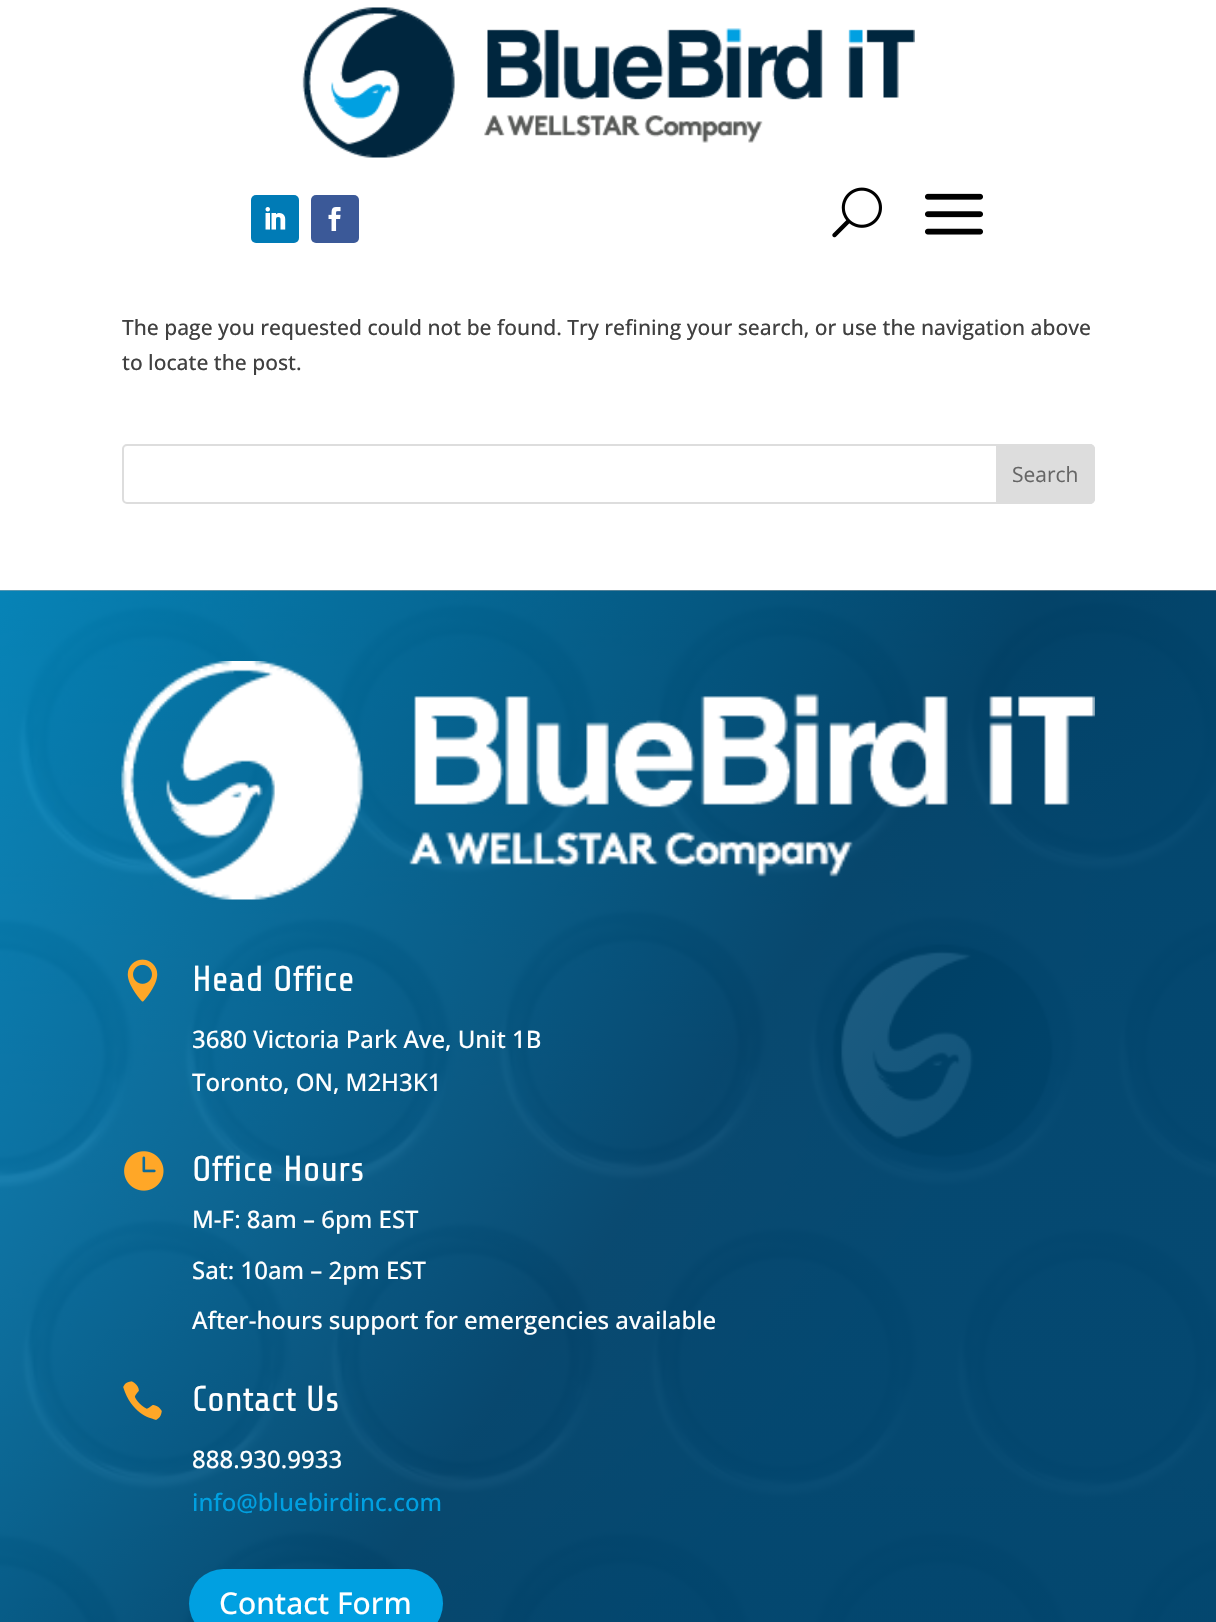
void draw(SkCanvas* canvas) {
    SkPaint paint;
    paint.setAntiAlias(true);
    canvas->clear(0xFFFFFFFF);
    canvas->drawImageRect(SkImages::DeferredFromEncodedData(SkData::MakeFromFileName("img1.png")), SkRect::MakeXYWH(302, 7, 613, 151), SkSamplingOptions());
    paint.setColor(0xFF007BB6);
    canvas->drawRoundRect(SkRect::MakeXYWH(251, 195, 48, 48), 5, 5, paint);
    canvas->drawImageRect(SkImages::DeferredFromEncodedData(SkData::MakeFromFileName("img2.png")), SkRect::MakeXYWH(265, 207, 21, 23), SkSamplingOptions());
    paint.setColor(0xFF3B5998);
    canvas->drawRoundRect(SkRect::MakeXYWH(311, 195, 48, 48), 5, 5, paint);
    canvas->drawImageRect(SkImages::DeferredFromEncodedData(SkData::MakeFromFileName("img3.png")), SkRect::MakeXYWH(328, 207, 13, 24), SkSamplingOptions());
    canvas->drawImageRect(SkImages::DeferredFromEncodedData(SkData::MakeFromFileName("img4.png")), SkRect::MakeXYWH(832, 187, 50, 51), SkSamplingOptions());
    canvas->drawImageRect(SkImages::DeferredFromEncodedData(SkData::MakeFromFileName("img5.png")), SkRect::MakeXYWH(925, 193, 58, 42), SkSamplingOptions());
    SkFont font1(fontMgr->matchFamilyStyle("Open Sans", SkFontStyle(500, SkFontStyle::kNormal_Width, SkFontStyle::kUpright_Slant)), 21);
    font1.setSubpixel(true);
    paint.setColor(0xFF404040);
    canvas->drawString("The page you requested could not be found. Try refining your search, or use the navigation above", 122, 335, font1, paint);
    canvas->drawString("to locate the post.", 122, 370, font1, paint);
    paint.setStyle(SkPaint::kStroke_Style);
    paint.setStrokeWidth(2);
    paint.setColor(0xFFDDDDDD);
    canvas->drawRoundRect(SkRect::MakeXYWH(123, 445, 971, 58), 4, 4, paint);
    paint.setStyle(SkPaint::kFill_Style);
    canvas->drawPath(SkPathBuilder().moveTo(997, 445).lineTo(1090, 445).cubicTo(1092, 445, 1094, 447, 1094, 449).lineTo(1094, 499).cubicTo(1094, 501, 1092, 503, 1090, 503).lineTo(997, 503).close().detach(), paint);
    paint.setStyle(SkPaint::kStroke_Style);
    canvas->drawPath(SkPathBuilder().moveTo(997, 445).lineTo(1090, 445).cubicTo(1092, 445, 1094, 447, 1094, 449).lineTo(1094, 499).cubicTo(1094, 501, 1092, 503, 1090, 503).lineTo(997, 503).close().detach(), paint);
    SkFont font2(fontMgr->matchFamilyStyle("Open Sans", SkFontStyle::Normal()), 21);
    font2.setSubpixel(true);
    paint.setStyle(SkPaint::kFill_Style);
    paint.setColor(0xFF666666);
    canvas->drawString("Search", 1012, 482, font2, paint);
    canvas->drawImageRect(SkImages::DeferredFromEncodedData(SkData::MakeFromFileName("img6.png")), SkRect::MakeXYWH(0, 590, 1216, 1032), SkSamplingOptions());
    canvas->drawImageRect(SkImages::DeferredFromEncodedData(SkData::MakeFromFileName("img7.png")), SkRect::MakeXYWH(121, 661, 974, 239), SkSamplingOptions());
    canvas->drawImageRect(SkImages::DeferredFromEncodedData(SkData::MakeFromFileName("img8.png")), SkRect::MakeXYWH(127, 959, 31, 43), SkSamplingOptions());
    SkFont font3(fontMgr->matchFamilyStyle("Share Tech", SkFontStyle::Normal()), 36);
    font3.setSubpixel(true);
    paint.setColor(0xFFFFFFFF);
    canvas->drawString("Head Office", 192, 991, font3, paint);
    SkFont font4(fontMgr->matchFamilyStyle("Open Sans", SkFontStyle(500, SkFontStyle::kNormal_Width, SkFontStyle::kUpright_Slant)), 24);
    font4.setSubpixel(true);
    canvas->drawString("3680 Victoria Park Ave, Unit 1B", 192, 1048, font4, paint);
    canvas->drawString("Toronto, ON, M2H3K1", 192, 1091, font4, paint);
    canvas->drawImageRect(SkImages::DeferredFromEncodedData(SkData::MakeFromFileName("img9.png")), SkRect::MakeXYWH(124, 1151, 40, 40), SkSamplingOptions());
    canvas->drawString("Office Hours", 192, 1181, font3, paint);
    canvas->drawString("M-F: 8am – 6pm EST", 192, 1228, font4, paint);
    canvas->drawString("Sat: 10am – 2pm EST", 192, 1279, font4, paint);
    canvas->drawString("After-hours support for emergencies available", 192, 1329, font4, paint);
    canvas->drawImageRect(SkImages::DeferredFromEncodedData(SkData::MakeFromFileName("img10.png")), SkRect::MakeXYWH(123, 1381, 39, 39), SkSamplingOptions());
    canvas->drawString("Contact Us", 192, 1411, font3, paint);
    canvas->drawString("888.930.9933", 192, 1468, font4, paint);
    paint.setColor(0xFF00A0E1);
    canvas->drawString("info@bluebirdinc.com", 192, 1511, font4, paint);
    canvas->drawRoundRect(SkRect::MakeXYWH(189, 1569, 254, 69), 34.5f, 34.5f, paint);
    SkFont font5(fontMgr->matchFamilyStyle("Open Sans", SkFontStyle(500, SkFontStyle::kNormal_Width, SkFontStyle::kUpright_Slant)), 30);
    font5.setSubpixel(true);
    paint.setColor(0xFFFFFFFF);
    canvas->drawString("Contact Form", 219, 1614, font5, paint);
}
